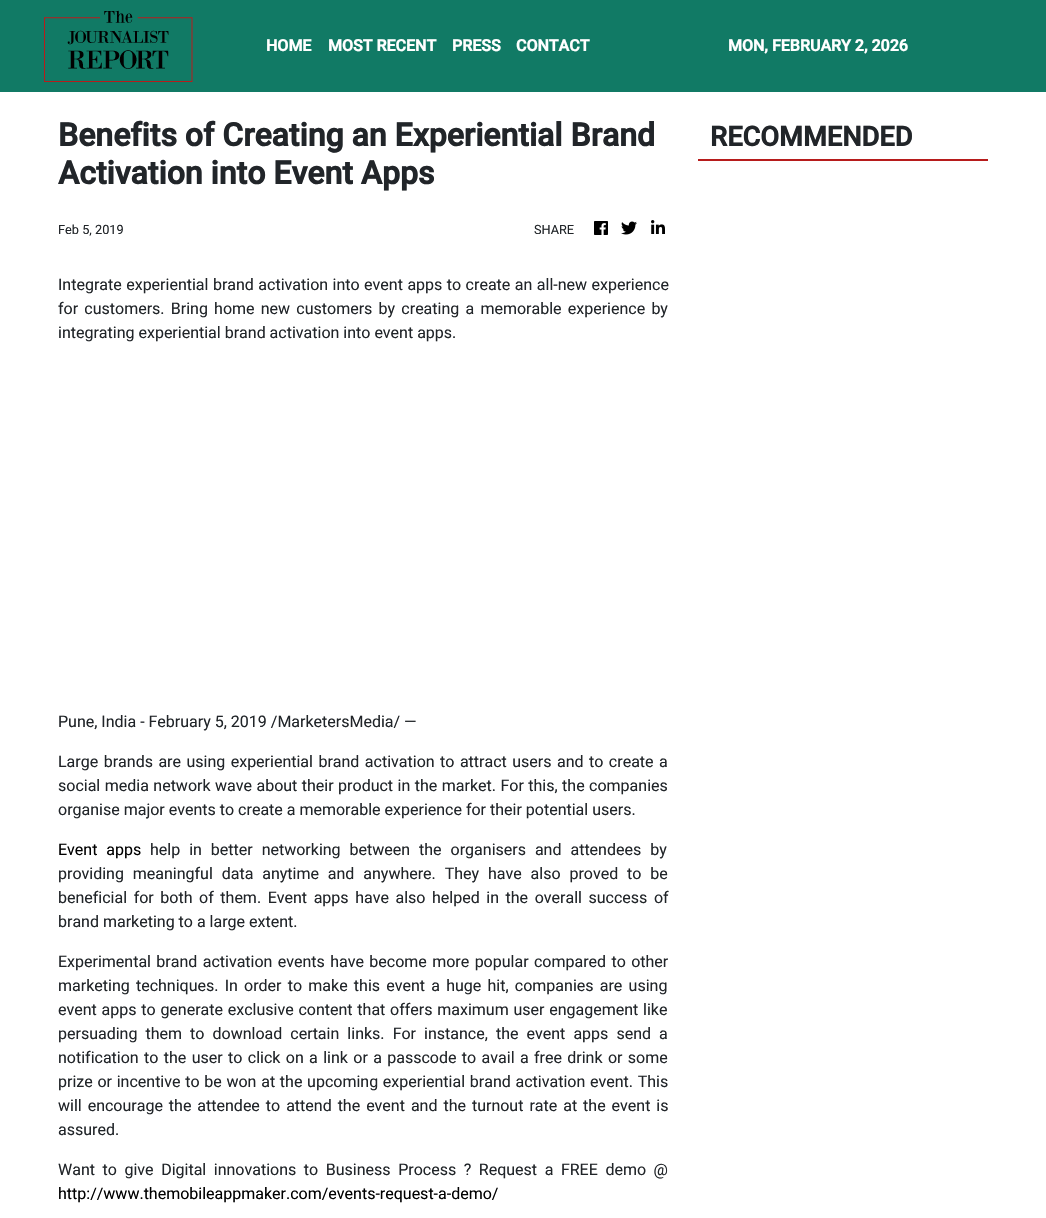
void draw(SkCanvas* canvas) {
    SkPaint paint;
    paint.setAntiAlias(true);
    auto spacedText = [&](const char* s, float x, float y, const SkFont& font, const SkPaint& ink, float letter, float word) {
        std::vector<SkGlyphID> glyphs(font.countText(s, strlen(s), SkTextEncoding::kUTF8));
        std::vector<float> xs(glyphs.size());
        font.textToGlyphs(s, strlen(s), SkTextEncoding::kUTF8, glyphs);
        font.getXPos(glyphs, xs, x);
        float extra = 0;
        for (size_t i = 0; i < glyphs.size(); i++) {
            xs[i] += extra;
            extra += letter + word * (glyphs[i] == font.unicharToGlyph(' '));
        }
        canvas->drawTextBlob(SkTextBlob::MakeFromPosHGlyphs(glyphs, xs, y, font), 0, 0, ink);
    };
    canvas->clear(0xFFFFFFFF);
    paint.setColor(0xFF117A65);
    canvas->drawRect(SkRect::MakeXYWH(0, 0, 1046, 92), paint);
    canvas->drawImageRect(SkImages::DeferredFromEncodedData(SkData::MakeFromFileName("img1.png")), SkRect::MakeXYWH(44, 10, 149, 72), SkSamplingOptions());
    SkFont font1(fontMgr->matchFamilyStyle("Roboto", SkFontStyle::Bold()), 16);
    font1.setSubpixel(true);
    paint.setColor(0xFFFFFFFF);
    canvas->drawString("HOME", 266, 51, font1, paint);
    canvas->drawString("MOST RECENT", 328, 51, font1, paint);
    canvas->drawString("PRESS", 452, 51, font1, paint);
    canvas->drawString("CONTACT", 516, 51, font1, paint);
    canvas->drawString("MON, FEBRUARY 2, 2026", 728, 51, font1, paint);
    SkFont font2(fontMgr->matchFamilyStyle("Roboto", SkFontStyle::Bold()), 32);
    font2.setSubpixel(true);
    paint.setColor(0xFF212529);
    canvas->drawString("Benefits of Creating an Experiential Brand", 58, 146, font2, paint);
    canvas->drawString("Activation into Event Apps", 58, 184, font2, paint);
    SkFont font3(fontMgr->matchFamilyStyle("Roboto", SkFontStyle::Normal()), 12.75f);
    font3.setSubpixel(true);
    canvas->drawString("Feb 5, 2019", 58, 234, font3, paint);
    canvas->drawString("SHARE", 534, 234, font3, paint);
    canvas->drawImageRect(SkImages::DeferredFromEncodedData(SkData::MakeFromFileName("img2.png")), SkRect::MakeXYWH(594, 221, 14, 14), SkSamplingOptions());
    canvas->drawImageRect(SkImages::DeferredFromEncodedData(SkData::MakeFromFileName("img3.png")), SkRect::MakeXYWH(621, 221, 16, 14), SkSamplingOptions());
    canvas->drawImageRect(SkImages::DeferredFromEncodedData(SkData::MakeFromFileName("img4.png")), SkRect::MakeXYWH(651, 220, 14, 14), SkSamplingOptions());
    SkFont font4(fontMgr->matchFamilyStyle("Roboto", SkFontStyle::Normal()), 16);
    font4.setSubpixel(true);
    spacedText("Integrate experiential brand activation into event apps to create an all-new experience", 58, 290, font4, paint, 0, 0.5f);
    spacedText("for customers. Bring home new customers by creating a memorable experience by", 58, 314, font4, paint, 0, 2.25f);
    canvas->drawString("integrating experiential brand activation into event apps.", 58, 338, font4, paint);
    canvas->drawString("Pune, India - February 5, 2019 /MarketersMedia/ —", 58, 727, font4, paint);
    spacedText("Large brands are using experiential brand activation to attract users and to create a", 58, 767, font4, paint, 0, 1.5f);
    spacedText("social media network wave about their product in the market. For this, the companies", 58, 791, font4, paint, 0, 0.5f);
    canvas->drawString("organise major events to create a memorable experience for their potential users.", 58, 815, font4, paint);
    paint.setColor(0xFF000000);
    spacedText("Event apps", 58, 855, font4, paint, 0, 5);
    paint.setColor(0xFF212529);
    spacedText("help in better networking between the organisers and attendees by", 150, 855, font4, paint, 0, 5);
    spacedText("providing meaningful data anytime and anywhere. They have also proved to be", 58, 879, font4, paint, 0, 4.9f);
    spacedText("beneficial for both of them. Event apps have also helped in the overall success of", 58, 903, font4, paint, 0, 2.6f);
    canvas->drawString("brand marketing to a large extent.", 58, 927, font4, paint);
    spacedText("Experimental brand activation events have become more popular compared to other", 58, 967, font4, paint, 0, 1.4f);
    spacedText("marketing techniques. In order to make this event a huge hit, companies are using", 58, 991, font4, paint, 0, 2.25f);
    spacedText("event apps to generate exclusive content that offers maximum user engagement like", 58, 1015, font4, paint, 0, 0.8f);
    spacedText("persuading them to download certain links. For instance, the event apps send a", 58, 1039, font4, paint, 0, 4.1f);
    spacedText("notification to the user to click on a link or a passcode to avail a free drink or some", 58, 1063, font4, paint, 0, 1.4f);
    spacedText("prize or incentive to be won at the upcoming experiential brand activation event. This", 58, 1087, font4, paint, 0, 0.75f);
    spacedText("will encourage the attendee to attend the event and the turnout rate at the event is", 58, 1111, font4, paint, 0, 2);
    canvas->drawString("assured.", 58, 1135, font4, paint);
    spacedText("Want to give Digital innovations to Business Process ? Request a FREE demo @", 58, 1175, font4, paint, 0, 3.6f);
    paint.setColor(0xFF000000);
    canvas->drawString("http://www.themobileappmaker.com/events-request-a-demo/", 58, 1199, font4, paint);
    paint.setColor(0xFFB71C1C);
    canvas->drawRect(SkRect::MakeXYWH(698, 159, 290, 2), paint);
    SkFont font5(fontMgr->matchFamilyStyle("Roboto", SkFontStyle::Bold()), 27.25f);
    font5.setSubpixel(true);
    paint.setColor(0xFF212529);
    canvas->drawString("RECOMMENDED", 710, 146, font5, paint);
}
